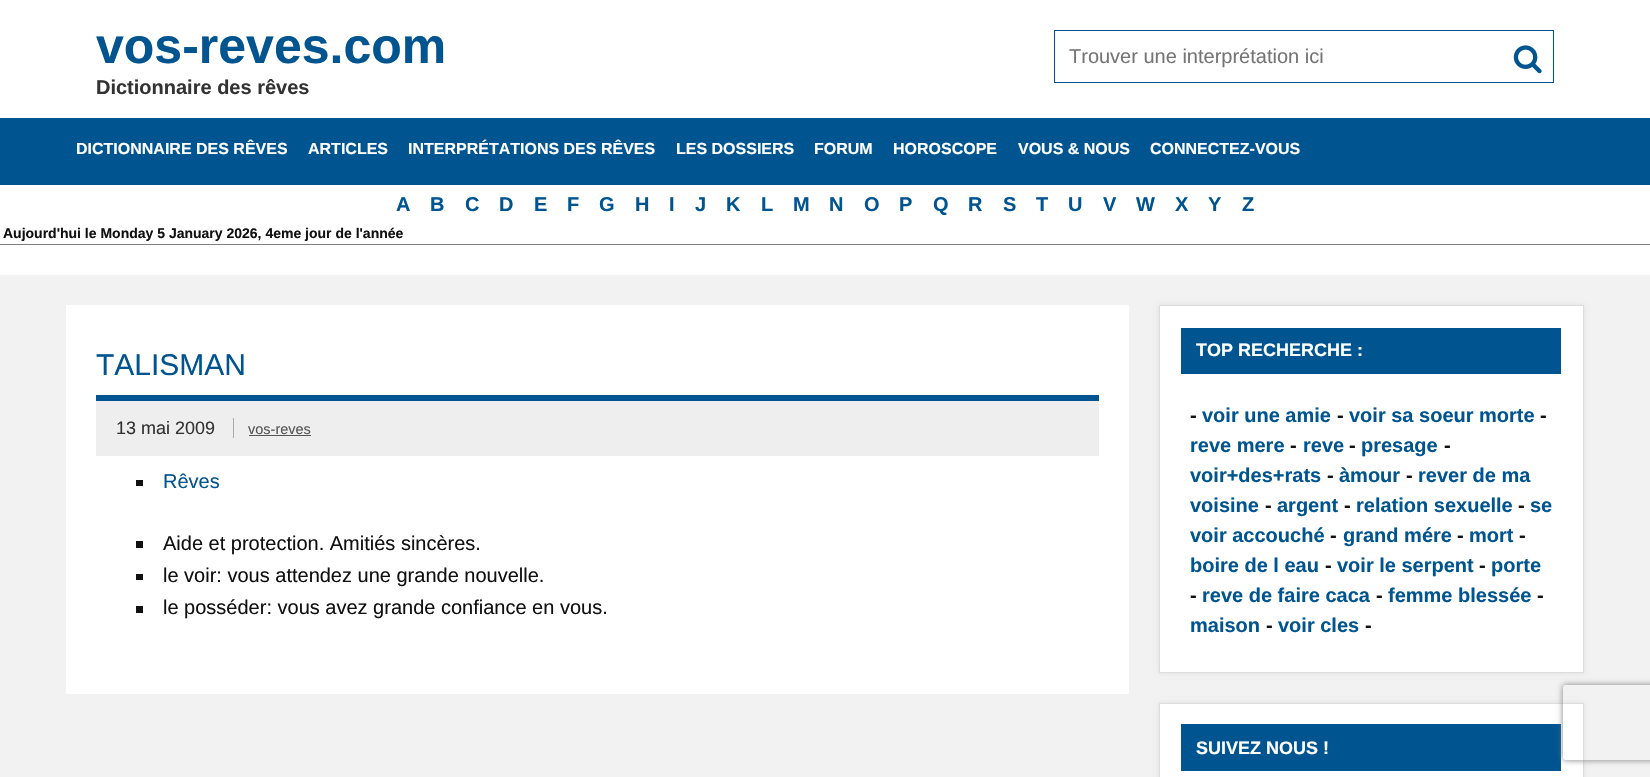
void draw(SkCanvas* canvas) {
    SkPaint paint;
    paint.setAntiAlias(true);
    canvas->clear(0xFFF2F2F2);
    paint.setColor(0xFFFFFFFF);
    canvas->drawRect(SkRect::MakeXYWH(0, 0, 1650, 118), paint);
    SkFont font1(fontMgr->matchFamilyStyle("Liberation Sans", SkFontStyle::Bold()), 50);
    font1.setSubpixel(true);
    paint.setColor(0xFF00548F);
    canvas->drawString("vos-reves.com", 96, 63, font1, paint);
    SkFont font2(fontMgr->matchFamilyStyle("Liberation Sans", SkFontStyle::Bold()), 20);
    font2.setSubpixel(true);
    paint.setColor(0xFF333333);
    canvas->drawString("Dictionnaire des rêves", 96, 94, font2, paint);
    paint.setStyle(SkPaint::kStroke_Style);
    paint.setStrokeWidth(1);
    paint.setColor(0xFF00548F);
    canvas->drawRect(SkRect::MakeXYWH(1054.5f, 30.5f, 499, 52), paint);
    SkFont font3(fontMgr->matchFamilyStyle("Liberation Sans", SkFontStyle::Normal()), 20);
    font3.setSubpixel(true);
    paint.setStyle(SkPaint::kFill_Style);
    paint.setColor(0xFF757575);
    canvas->drawString("Trouver une interprétation ici", 1069, 63, font3, paint);
    canvas->drawImageRect(SkImages::DeferredFromEncodedData(SkData::MakeFromFileName("img1.png")), SkRect::MakeXYWH(1513, 45, 29, 29), SkSamplingOptions());
    paint.setColor(0xFF00548F);
    canvas->drawRect(SkRect::MakeXYWH(0, 118, 1650, 67), paint);
    SkFont font4(fontMgr->matchFamilyStyle("Liberation Sans", SkFontStyle::Bold()), 16);
    font4.setSubpixel(true);
    paint.setColor(0xFFFFFFFF);
    canvas->drawString("DICTIONNAIRE DES RÊVES", 76, 154, font4, paint);
    canvas->drawString("ARTICLES", 308, 154, font4, paint);
    canvas->drawString("INTERPRÉTATIONS DES RÊVES", 408, 154, font4, paint);
    canvas->drawString("LES DOSSIERS", 676, 154, font4, paint);
    canvas->drawString("FORUM", 814, 154, font4, paint);
    canvas->drawString("HOROSCOPE", 893, 154, font4, paint);
    canvas->drawString("VOUS & NOUS", 1018, 154, font4, paint);
    canvas->drawString("CONNECTEZ-VOUS", 1150, 154, font4, paint);
    canvas->drawRect(SkRect::MakeXYWH(0, 185, 1650, 59), paint);
    paint.setColor(0xFF00548F);
    canvas->drawString("A", 396, 211, font2, paint);
    canvas->drawString("B", 430, 211, font2, paint);
    canvas->drawString("C", 465, 211, font2, paint);
    canvas->drawString("D", 499, 211, font2, paint);
    canvas->drawString("E", 534, 211, font2, paint);
    canvas->drawString("F", 567, 211, font2, paint);
    canvas->drawString("G", 599, 211, font2, paint);
    canvas->drawString("H", 635, 211, font2, paint);
    canvas->drawString("I", 669, 211, font2, paint);
    canvas->drawString("J", 695, 211, font2, paint);
    canvas->drawString("K", 726, 211, font2, paint);
    canvas->drawString("L", 761, 211, font2, paint);
    canvas->drawString("M", 793, 211, font2, paint);
    canvas->drawString("N", 829, 211, font2, paint);
    canvas->drawString("O", 864, 211, font2, paint);
    canvas->drawString("P", 899, 211, font2, paint);
    canvas->drawString("Q", 933, 211, font2, paint);
    canvas->drawString("R", 968, 211, font2, paint);
    canvas->drawString("S", 1003, 211, font2, paint);
    canvas->drawString("T", 1036, 211, font2, paint);
    canvas->drawString("U", 1068, 211, font2, paint);
    canvas->drawString("V", 1103, 211, font2, paint);
    canvas->drawString("W", 1136, 211, font2, paint);
    canvas->drawString("X", 1175, 211, font2, paint);
    canvas->drawString("Y", 1208, 211, font2, paint);
    canvas->drawString("Z", 1242, 211, font2, paint);
    SkFont font5(fontMgr->matchFamilyStyle("Liberation Sans", SkFontStyle::Bold()), 14);
    font5.setSubpixel(true);
    paint.setColor(0xFF111111);
    canvas->drawString("Aujourd'hui le Monday 5 January 2026, 4eme jour de l'année", 3, 238, font5, paint);
    paint.setColor(0xFFFFFFFF);
    canvas->drawRect(SkRect::MakeXYWH(0, 245, 1650, 30), paint);
    paint.setColor(0xFF808080);
    canvas->drawRect(SkRect::MakeXYWH(0, 244, 1650, 1), paint);
    paint.setColor(0xFFFFFFFF);
    canvas->drawRect(SkRect::MakeXYWH(66, 305, 1063, 389), paint);
    paint.setColor(0xFF00548F);
    canvas->drawRect(SkRect::MakeXYWH(96, 395, 1003, 6), paint);
    SkFont font6(fontMgr->matchFamilyStyle("Liberation Sans", SkFontStyle::Normal()), 30);
    font6.setSubpixel(true);
    canvas->drawString("TALISMAN", 96, 375, font6, paint);
    paint.setColor(0xFFEEEEEE);
    canvas->drawRect(SkRect::MakeXYWH(96, 401, 1003, 55), paint);
    SkFont font7(fontMgr->matchFamilyStyle("Liberation Sans", SkFontStyle::Normal()), 18);
    font7.setSubpixel(true);
    paint.setColor(0xFF333333);
    canvas->drawString("13 mai 2009", 116, 434, font7, paint);
    SkFont font8(fontMgr->matchFamilyStyle("Liberation Sans", SkFontStyle::Normal()), 14.5f);
    font8.setSubpixel(true);
    paint.setColor(0xFF555555);
    canvas->drawString("vos-reves", 248, 434, font8, paint);
    paint.setColor(0xFFAAAAAA);
    canvas->drawRect(SkRect::MakeXYWH(233, 418, 1, 20), paint);
    paint.setColor(0xFF555555);
    canvas->drawRect(SkRect::MakeXYWH(249, 435, 62, 1), paint);
    paint.setColor(0xFF111111);
    canvas->drawRect(SkRect::MakeXYWH(136, 480, 7, 6), paint);
    paint.setColor(0xFF00548F);
    canvas->drawString("Rêves", 163, 488, font3, paint);
    paint.setColor(0xFF111111);
    canvas->drawRect(SkRect::MakeXYWH(136, 541, 7, 7), paint);
    canvas->drawString("Aide et protection. Amitiés sincères.", 163, 550, font3, paint);
    canvas->drawRect(SkRect::MakeXYWH(136, 574, 7, 6), paint);
    canvas->drawString("le voir: vous attendez une grande nouvelle.", 163, 582, font3, paint);
    canvas->drawRect(SkRect::MakeXYWH(136, 606, 7, 7), paint);
    canvas->drawString("le posséder: vous avez grande confiance en vous.", 163, 614, font3, paint);
    paint.setColor(0xFFDDDDDD);
    paint.setMaskFilter(SkMaskFilter::MakeBlur(kNormal_SkBlurStyle, 2.5f));
    canvas->drawRect(SkRect::MakeXYWH(1159, 305, 425, 368), paint);
    paint.setMaskFilter(nullptr);
    paint.setColor(0xFFFFFFFF);
    canvas->drawRect(SkRect::MakeXYWH(1159.5f, 305.5f, 424, 367), paint);
    paint.setStyle(SkPaint::kStroke_Style);
    paint.setColor(0xFFDDDDDD);
    canvas->drawRect(SkRect::MakeXYWH(1159.5f, 305.5f, 424, 367), paint);
    paint.setStyle(SkPaint::kFill_Style);
    paint.setColor(0xFF00548F);
    canvas->drawRect(SkRect::MakeXYWH(1181, 328, 380, 46), paint);
    SkFont font9(fontMgr->matchFamilyStyle("Liberation Sans", SkFontStyle::Bold()), 18);
    font9.setSubpixel(true);
    paint.setColor(0xFFFFFFFF);
    canvas->drawString("TOP RECHERCHE :", 1196, 356, font9, paint);
    paint.setColor(0xFF111111);
    canvas->drawString("-", 1190, 422, font2, paint);
    paint.setColor(0xFF00548F);
    canvas->drawString("voir une amie", 1202, 422, font2, paint);
    paint.setColor(0xFF111111);
    canvas->drawString("-", 1337, 422, font2, paint);
    paint.setColor(0xFF00548F);
    canvas->drawString("voir sa soeur morte", 1349, 422, font2, paint);
    paint.setColor(0xFF111111);
    canvas->drawString("-", 1540, 422, font2, paint);
    paint.setColor(0xFF00548F);
    canvas->drawString("reve mere", 1190, 452, font2, paint);
    paint.setColor(0xFF111111);
    canvas->drawString("-", 1290, 452, font2, paint);
    paint.setColor(0xFF00548F);
    canvas->drawString("reve", 1303, 452, font2, paint);
    paint.setColor(0xFF111111);
    canvas->drawString("-", 1349, 452, font2, paint);
    paint.setColor(0xFF00548F);
    canvas->drawString("presage", 1361, 452, font2, paint);
    paint.setColor(0xFF111111);
    canvas->drawString("-", 1444, 452, font2, paint);
    paint.setColor(0xFF00548F);
    canvas->drawString("voir+des+rats", 1190, 482, font2, paint);
    paint.setColor(0xFF111111);
    canvas->drawString("-", 1327, 482, font2, paint);
    paint.setColor(0xFF00548F);
    canvas->drawString("àmour", 1339, 482, font2, paint);
    paint.setColor(0xFF111111);
    canvas->drawString("-", 1406, 482, font2, paint);
    paint.setColor(0xFF00548F);
    canvas->drawString("rever de ma", 1418, 482, font2, paint);
    canvas->drawString("voisine", 1190, 512, font2, paint);
    paint.setColor(0xFF111111);
    canvas->drawString("-", 1265, 512, font2, paint);
    paint.setColor(0xFF00548F);
    canvas->drawString("argent", 1277, 512, font2, paint);
    paint.setColor(0xFF111111);
    canvas->drawString("-", 1344, 512, font2, paint);
    paint.setColor(0xFF00548F);
    canvas->drawString("relation sexuelle", 1356, 512, font2, paint);
    paint.setColor(0xFF111111);
    canvas->drawString("-", 1518, 512, font2, paint);
    paint.setColor(0xFF00548F);
    canvas->drawString("se", 1530, 512, font2, paint);
    canvas->drawString("voir accouché", 1190, 542, font2, paint);
    paint.setColor(0xFF111111);
    canvas->drawString("-", 1330, 542, font2, paint);
    paint.setColor(0xFF00548F);
    canvas->drawString("grand mére", 1343, 542, font2, paint);
    paint.setColor(0xFF111111);
    canvas->drawString("-", 1457, 542, font2, paint);
    paint.setColor(0xFF00548F);
    canvas->drawString("mort", 1469, 542, font2, paint);
    paint.setColor(0xFF111111);
    canvas->drawString("-", 1519, 542, font2, paint);
    paint.setColor(0xFF00548F);
    canvas->drawString("boire de l eau", 1190, 572, font2, paint);
    paint.setColor(0xFF111111);
    canvas->drawString("-", 1325, 572, font2, paint);
    paint.setColor(0xFF00548F);
    canvas->drawString("voir le serpent", 1337, 572, font2, paint);
    paint.setColor(0xFF111111);
    canvas->drawString("-", 1479, 572, font2, paint);
    paint.setColor(0xFF00548F);
    canvas->drawString("porte", 1491, 572, font2, paint);
    paint.setColor(0xFF111111);
    canvas->drawString("-", 1190, 602, font2, paint);
    paint.setColor(0xFF00548F);
    canvas->drawString("reve de faire caca", 1202, 602, font2, paint);
    paint.setColor(0xFF111111);
    canvas->drawString("-", 1376, 602, font2, paint);
    paint.setColor(0xFF00548F);
    canvas->drawString("femme blessée", 1388, 602, font2, paint);
    paint.setColor(0xFF111111);
    canvas->drawString("-", 1537, 602, font2, paint);
    paint.setColor(0xFF00548F);
    canvas->drawString("maison", 1190, 632, font2, paint);
    paint.setColor(0xFF111111);
    canvas->drawString("-", 1266, 632, font2, paint);
    paint.setColor(0xFF00548F);
    canvas->drawString("voir cles", 1278, 632, font2, paint);
    paint.setColor(0xFF111111);
    canvas->drawString("-", 1365, 632, font2, paint);
    paint.setColor(0xFFDDDDDD);
    paint.setMaskFilter(SkMaskFilter::MakeBlur(kNormal_SkBlurStyle, 2.5f));
    canvas->drawRect(SkRect::MakeXYWH(1159, 703, 425, 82), paint);
    paint.setMaskFilter(nullptr);
    paint.setColor(0xFFFFFFFF);
    canvas->drawRect(SkRect::MakeXYWH(1159.5f, 703.5f, 424, 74), paint);
    paint.setStyle(SkPaint::kStroke_Style);
    paint.setColor(0xFFDDDDDD);
    canvas->drawRect(SkRect::MakeXYWH(1159.5f, 703.5f, 424, 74), paint);
    paint.setStyle(SkPaint::kFill_Style);
    paint.setColor(0xFF00548F);
    canvas->drawRect(SkRect::MakeXYWH(1181, 724, 380, 47), paint);
    paint.setColor(0xFFFFFFFF);
    canvas->drawString("SUIVEZ NOUS !", 1196, 754, font9, paint);
    canvas->save();
    canvas->clipPath(SkPathBuilder(SkPathFillType::kEvenOdd).moveTo(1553, 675).lineTo(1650, 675).lineTo(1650, 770).lineTo(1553, 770).close().moveTo(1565.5f, 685).lineTo(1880.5f, 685).cubicTo(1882, 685, 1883, 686, 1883, 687.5f).lineTo(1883, 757.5f).cubicTo(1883, 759, 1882, 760, 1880.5f, 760).lineTo(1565.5f, 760).cubicTo(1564, 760, 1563, 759, 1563, 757.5f).lineTo(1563, 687.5f).cubicTo(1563, 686, 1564, 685, 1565.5f, 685).close().detach(), true);
    paint.setColor(0xFF808080);
    paint.setMaskFilter(SkMaskFilter::MakeBlur(kNormal_SkBlurStyle, 3));
    canvas->drawRoundRect(SkRect::MakeXYWH(1563, 685, 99, 75), 2.5f, 2.5f, paint);
    paint.setMaskFilter(nullptr);
    canvas->restore();
}
